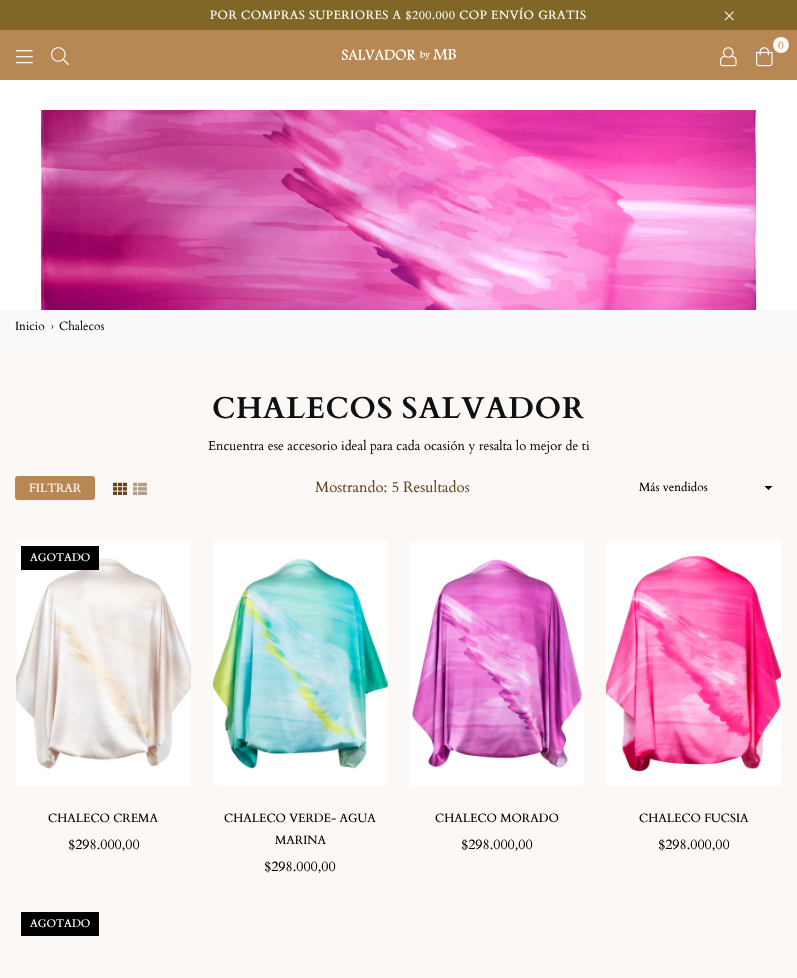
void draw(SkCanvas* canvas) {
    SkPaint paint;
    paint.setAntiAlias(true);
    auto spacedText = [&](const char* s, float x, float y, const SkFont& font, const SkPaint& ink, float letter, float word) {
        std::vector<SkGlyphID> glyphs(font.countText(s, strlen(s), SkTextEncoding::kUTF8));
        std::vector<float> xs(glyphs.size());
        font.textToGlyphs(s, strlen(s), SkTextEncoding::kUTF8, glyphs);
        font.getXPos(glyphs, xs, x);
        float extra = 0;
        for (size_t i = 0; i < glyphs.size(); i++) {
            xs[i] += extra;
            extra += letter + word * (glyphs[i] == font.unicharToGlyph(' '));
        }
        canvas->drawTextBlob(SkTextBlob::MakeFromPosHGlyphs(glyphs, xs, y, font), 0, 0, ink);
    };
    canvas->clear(0xFFFCF8F5);
    paint.setColor(0xFF806727);
    canvas->drawRect(SkRect::MakeXYWH(0, 0, 797, 30), paint);
    SkFont font1(fontMgr->matchFamilyStyle("Cardo", SkFontStyle::Normal()), 12);
    font1.setSubpixel(true);
    paint.setColor(0xFFFFFFFF);
    spacedText("POR COMPRAS SUPERIORES A $200.000 COP ENVÍO GRATIS", 210, 19, font1, paint, 0.5f, 0);
    canvas->drawImageRect(SkImages::DeferredFromEncodedData(SkData::MakeFromFileName("img1.png")), SkRect::MakeXYWH(724, 11, 10, 10), SkSamplingOptions());
    paint.setColor(0xFFB88854);
    canvas->drawRect(SkRect::MakeXYWH(0, 30, 797, 50), paint);
    paint.setColor(0xFFFCF8F5);
    canvas->drawCircle(781, 45, 8, paint);
    SkFont font2(fontMgr->matchFamilyStyle("Cardo", SkFontStyle::Normal()), 11);
    font2.setSubpixel(true);
    paint.setColor(0xFFB88854);
    canvas->drawString("0", 778, 49, font2, paint);
    canvas->drawImageRect(SkImages::DeferredFromEncodedData(SkData::MakeFromFileName("img2.png")), SkRect::MakeXYWH(756, 47, 17, 20), SkSamplingOptions());
    canvas->drawImageRect(SkImages::DeferredFromEncodedData(SkData::MakeFromFileName("img3.png")), SkRect::MakeXYWH(720, 47, 17, 20), SkSamplingOptions());
    canvas->drawImageRect(SkImages::DeferredFromEncodedData(SkData::MakeFromFileName("img4.png")), SkRect::MakeXYWH(16, 50, 17, 14), SkSamplingOptions());
    canvas->drawImageRect(SkImages::DeferredFromEncodedData(SkData::MakeFromFileName("img5.png")), SkRect::MakeXYWH(51, 47, 18, 19), SkSamplingOptions());
    canvas->drawImageRect(SkImages::DeferredFromEncodedData(SkData::MakeFromFileName("img6.png")), SkRect::MakeXYWH(341, 49, 115, 11), SkSamplingOptions());
    paint.setColor(0xFFFFFFFF);
    canvas->drawRect(SkRect::MakeXYWH(0, 80, 797, 30), paint);
    canvas->drawImageRect(SkImages::DeferredFromEncodedData(SkData::MakeFromFileName("img7.png")), SkRect::MakeXYWH(0, 110, 797, 200), SkSamplingOptions());
    paint.setColor(0xFFF9F9F9);
    canvas->drawRect(SkRect::MakeXYWH(0, 310, 797, 33), paint);
    paint.setColor(0xFF111111);
    canvas->drawString("Inicio", 15, 330, font1, paint);
    canvas->drawString("›", 51, 330, font1, paint);
    canvas->drawString("Chalecos", 59, 330, font1, paint);
    SkFont font3(fontMgr->matchFamilyStyle("Cardo", SkFontStyle::Bold()), 30);
    font3.setSubpixel(true);
    spacedText("CHALECOS SALVADOR", 212, 418, font3, paint, 0.6f, 0);
    SkFont font4(fontMgr->matchFamilyStyle("Cardo", SkFontStyle::Normal()), 13);
    font4.setSubpixel(true);
    canvas->drawString("Encuentra ese accesorio ideal para cada ocasión y resalta lo mejor de ti", 208, 450, font4, paint);
    paint.setColor(0xFFB88854);
    canvas->drawRoundRect(SkRect::MakeXYWH(15, 476, 80, 24), 3, 3, paint);
    paint.setColor(0xFFFCF8F5);
    canvas->drawString("FILTRAR", 29, 492, font1, paint);
    canvas->drawImageRect(SkImages::DeferredFromEncodedData(SkData::MakeFromFileName("img8.png")), SkRect::MakeXYWH(113, 482, 14, 13), SkSamplingOptions());
    canvas->drawImageRect(SkImages::DeferredFromEncodedData(SkData::MakeFromFileName("img9.png")), SkRect::MakeXYWH(133, 482, 14, 13), SkSamplingOptions());
    SkFont font5(fontMgr->matchFamilyStyle("Cardo", SkFontStyle::Normal()), 15);
    font5.setSubpixel(true);
    paint.setColor(0xFF634320);
    canvas->drawString("Mostrando: 5 Resultados", 315, 492, font5, paint);
    canvas->drawImageRect(SkImages::DeferredFromEncodedData(SkData::MakeFromFileName("img10.png")), SkRect::MakeXYWH(765, 486, 7, 4), SkSamplingOptions());
    paint.setColor(0xFF000000);
    canvas->drawString("Más vendidos", 639, 491, font1, paint);
    canvas->drawImageRect(SkImages::DeferredFromEncodedData(SkData::MakeFromFileName("img11.png")), SkRect::MakeXYWH(16, 541, 175, 245), SkSamplingOptions());
    canvas->drawRect(SkRect::MakeXYWH(21, 546, 78, 24), paint);
    paint.setColor(0xFFFFFFFF);
    canvas->drawString("AGOTADO", 30, 561, font2, paint);
    paint.setColor(0xFF000000);
    canvas->drawString("CHALECO CREMA", 48, 822, font1, paint);
    SkFont font6(fontMgr->matchFamilyStyle("Cardo", SkFontStyle::Normal()), 14);
    font6.setSubpixel(true);
    canvas->drawString("$298.000,00", 68, 849, font6, paint);
    canvas->drawImageRect(SkImages::DeferredFromEncodedData(SkData::MakeFromFileName("img12.png")), SkRect::MakeXYWH(213, 541, 175, 245), SkSamplingOptions());
    canvas->drawString("CHALECO VERDE- AGUA", 224, 822, font1, paint);
    canvas->drawString("MARINA", 275, 844, font1, paint);
    canvas->drawString("$298.000,00", 264, 871, font6, paint);
    canvas->drawImageRect(SkImages::DeferredFromEncodedData(SkData::MakeFromFileName("img13.png")), SkRect::MakeXYWH(410, 541, 174, 245), SkSamplingOptions());
    canvas->drawString("CHALECO MORADO", 435, 822, font1, paint);
    canvas->drawString("$298.000,00", 461, 849, font6, paint);
    canvas->drawImageRect(SkImages::DeferredFromEncodedData(SkData::MakeFromFileName("img14.png")), SkRect::MakeXYWH(606, 541, 175, 245), SkSamplingOptions());
    canvas->drawString("CHALECO FUCSIA", 639, 822, font1, paint);
    canvas->drawString("$298.000,00", 658, 849, font6, paint);
    canvas->drawRect(SkRect::MakeXYWH(21, 912, 78, 24), paint);
    paint.setColor(0xFFFFFFFF);
    canvas->drawString("AGOTADO", 30, 927, font2, paint);
}
